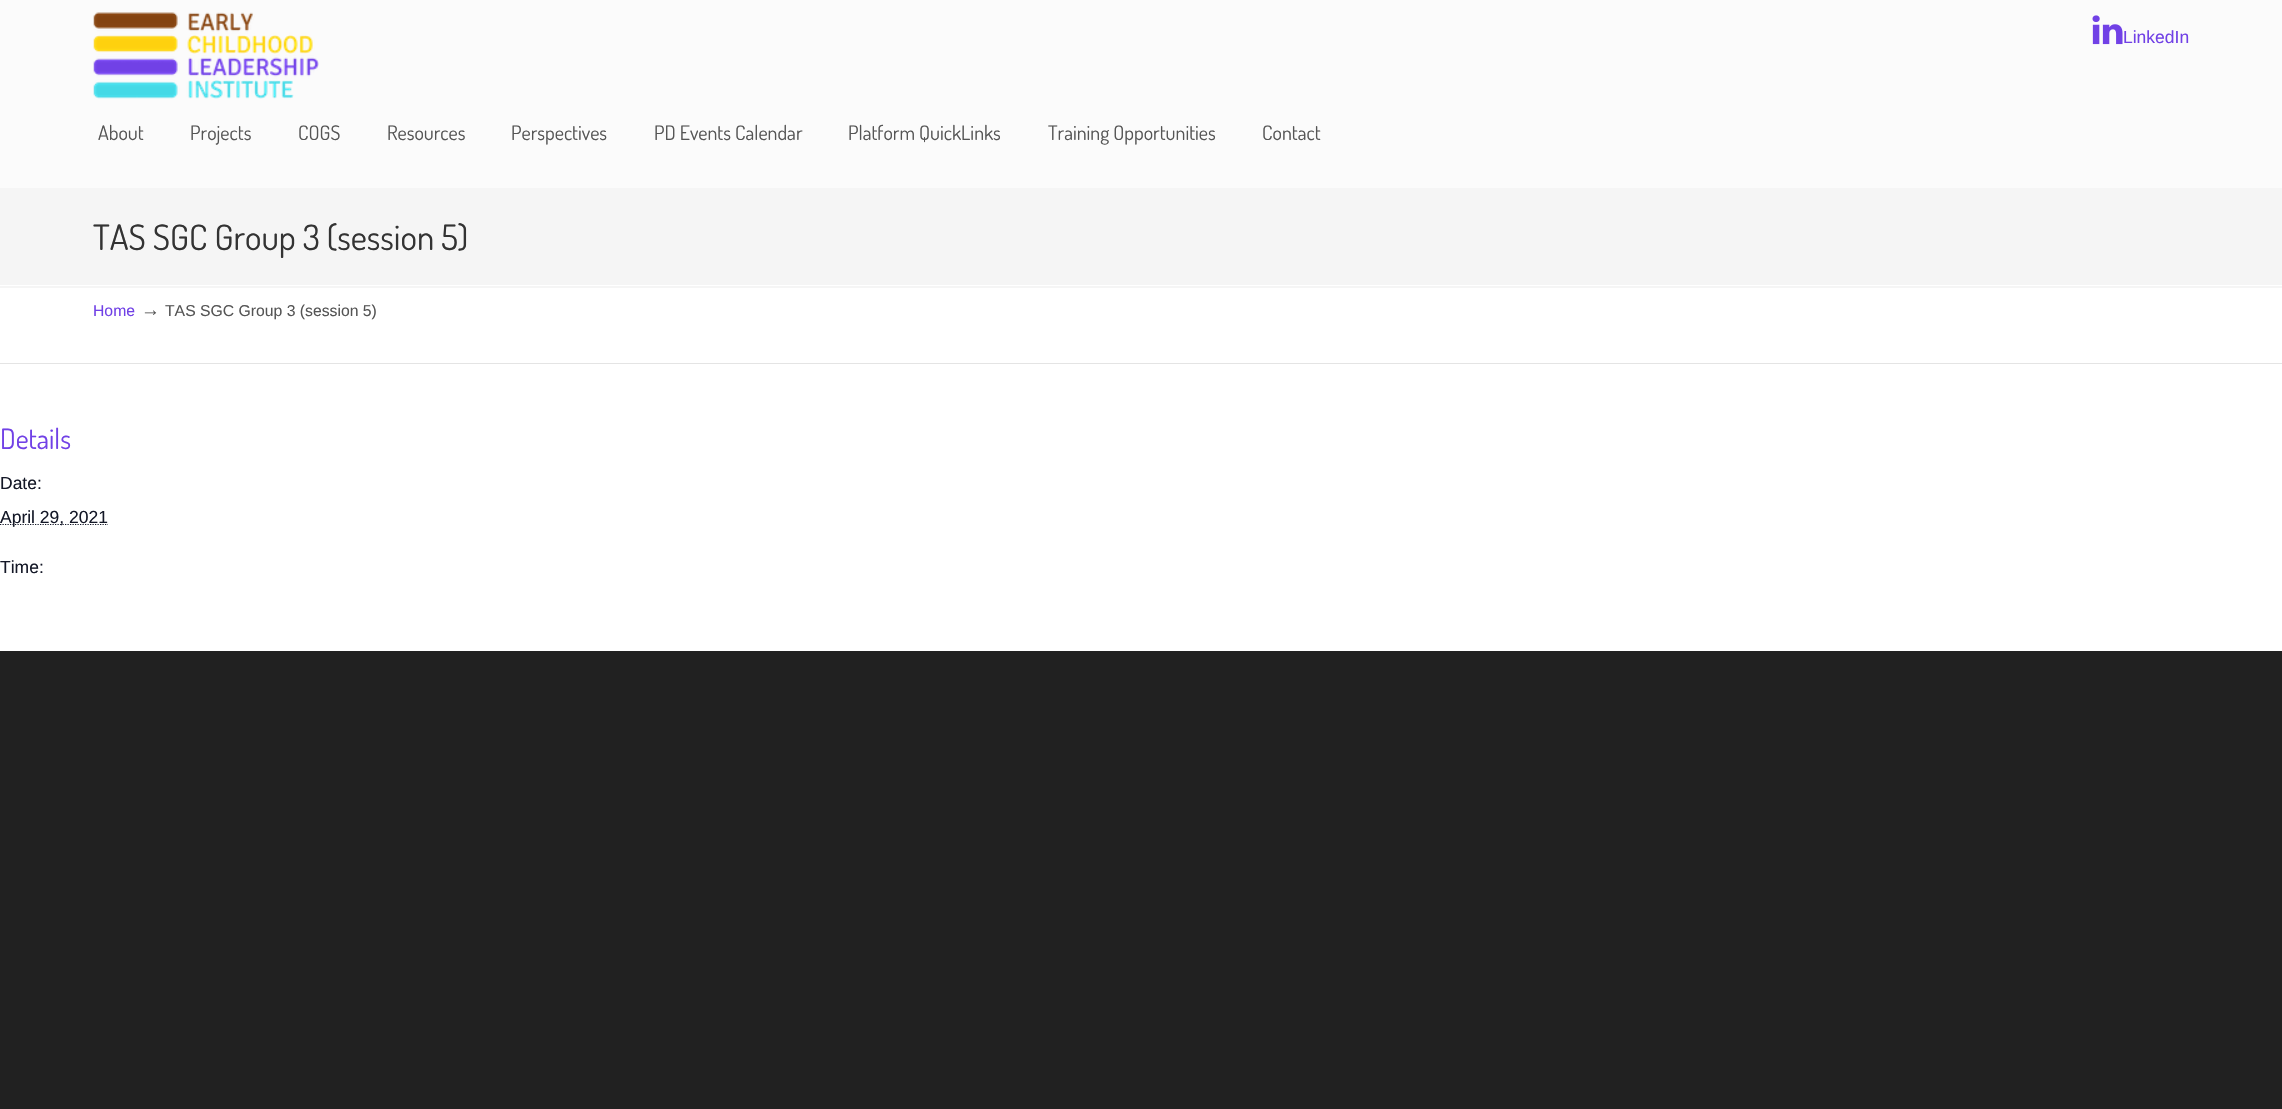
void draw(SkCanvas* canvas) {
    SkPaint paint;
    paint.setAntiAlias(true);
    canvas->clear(0xFF212121);
    paint.setColor(0xFFFBFBFB);
    canvas->drawRect(SkRect::MakeXYWH(0, 0, 2282, 188), paint);
    canvas->drawImageRect(SkImages::DeferredFromEncodedData(SkData::MakeFromFileName("img1.png")), SkRect::MakeXYWH(93, 12, 226, 87), SkSamplingOptions());
    canvas->drawImageRect(SkImages::DeferredFromEncodedData(SkData::MakeFromFileName("img2.png")), SkRect::MakeXYWH(2092, 15, 31, 30), SkSamplingOptions());
    SkFont font1(fontMgr->matchFamilyStyle("Liberation Sans", SkFontStyle::Normal()), 17.5f);
    font1.setSubpixel(true);
    paint.setColor(0xFF7141E6);
    canvas->drawString("LinkedIn", 2123, 43, font1, paint);
    SkFont font2(fontMgr->matchFamilyStyle("Dosis", SkFontStyle::Normal()), 20);
    font2.setSubpixel(true);
    paint.setColor(0xFF555555);
    canvas->drawString("About", 98, 140, font2, paint);
    canvas->drawString("Projects", 190, 140, font2, paint);
    canvas->drawString("COGS", 298, 140, font2, paint);
    canvas->drawString("Resources", 387, 140, font2, paint);
    canvas->drawString("Perspectives", 511, 140, font2, paint);
    canvas->drawString("PD Events Calendar", 654, 140, font2, paint);
    canvas->drawString("Platform QuickLinks", 848, 140, font2, paint);
    canvas->drawString("Training Opportunities", 1048, 140, font2, paint);
    canvas->drawString("Contact", 1262, 140, font2, paint);
    paint.setColor(0xFFF5F5F5);
    canvas->drawRect(SkRect::MakeXYWH(0, 188, 2282, 97), paint);
    SkFont font3(fontMgr->matchFamilyStyle("Dosis", SkFontStyle::Normal()), 35);
    font3.setSubpixel(true);
    paint.setColor(0xFF333333);
    canvas->drawString("TAS SGC Group 3 (session 5)", 93, 250, font3, paint);
    paint.setColor(0xFFFFFFFF);
    canvas->drawRect(SkRect::MakeXYWH(0, 285, 2282, 366), paint);
    canvas->drawImageRect(SkImages::DeferredFromEncodedData(SkData::MakeFromFileName("img3.png")), SkRect::MakeXYWH(0, 286, 2282, 2), SkSamplingOptions());
    SkFont font4(fontMgr->matchFamilyStyle("Liberation Sans", SkFontStyle::Normal()), 15.75f);
    font4.setSubpixel(true);
    paint.setColor(0xFF7141E6);
    canvas->drawString("Home", 93, 316, font4, paint);
    SkFont font5(fontMgr->matchFamilyStyle("Liberation Sans", SkFontStyle::Normal()), 19);
    font5.setSubpixel(true);
    paint.setColor(0xFF555555);
    canvas->drawString("→", 141, 316, font5, paint);
    canvas->drawString("TAS SGC Group 3 (session 5)", 165, 316, font4, paint);
    paint.setColor(0xFFE4E4E4);
    canvas->drawRect(SkRect::MakeXYWH(0, 363, 2282, 1), paint);
    SkFont font6(fontMgr->matchFamilyStyle("Dosis", SkFontStyle::Normal()), 28);
    font6.setSubpixel(true);
    paint.setColor(0xFF7141E6);
    canvas->drawString("Details", 0, 449, font6, paint);
    paint.setColor(0xFF141827);
    canvas->drawString("Date:", 0, 489, font1, paint);
    paint.setStyle(SkPaint::kStroke_Style);
    paint.setStrokeWidth(1.2f);
    paint.setPathEffect(SkDashPathEffect::Make({{1.25f, 1.25f}}, 0));
    canvas->drawPath(SkPathBuilder().moveTo(0, 524.5f).lineTo(108, 524.5f).detach(), paint);
    paint.setPathEffect(nullptr);
    paint.setStyle(SkPaint::kFill_Style);
    canvas->drawString("April 29, 2021", 0, 523, font1, paint);
    canvas->drawString("Time:", 0, 573, font1, paint);
}
